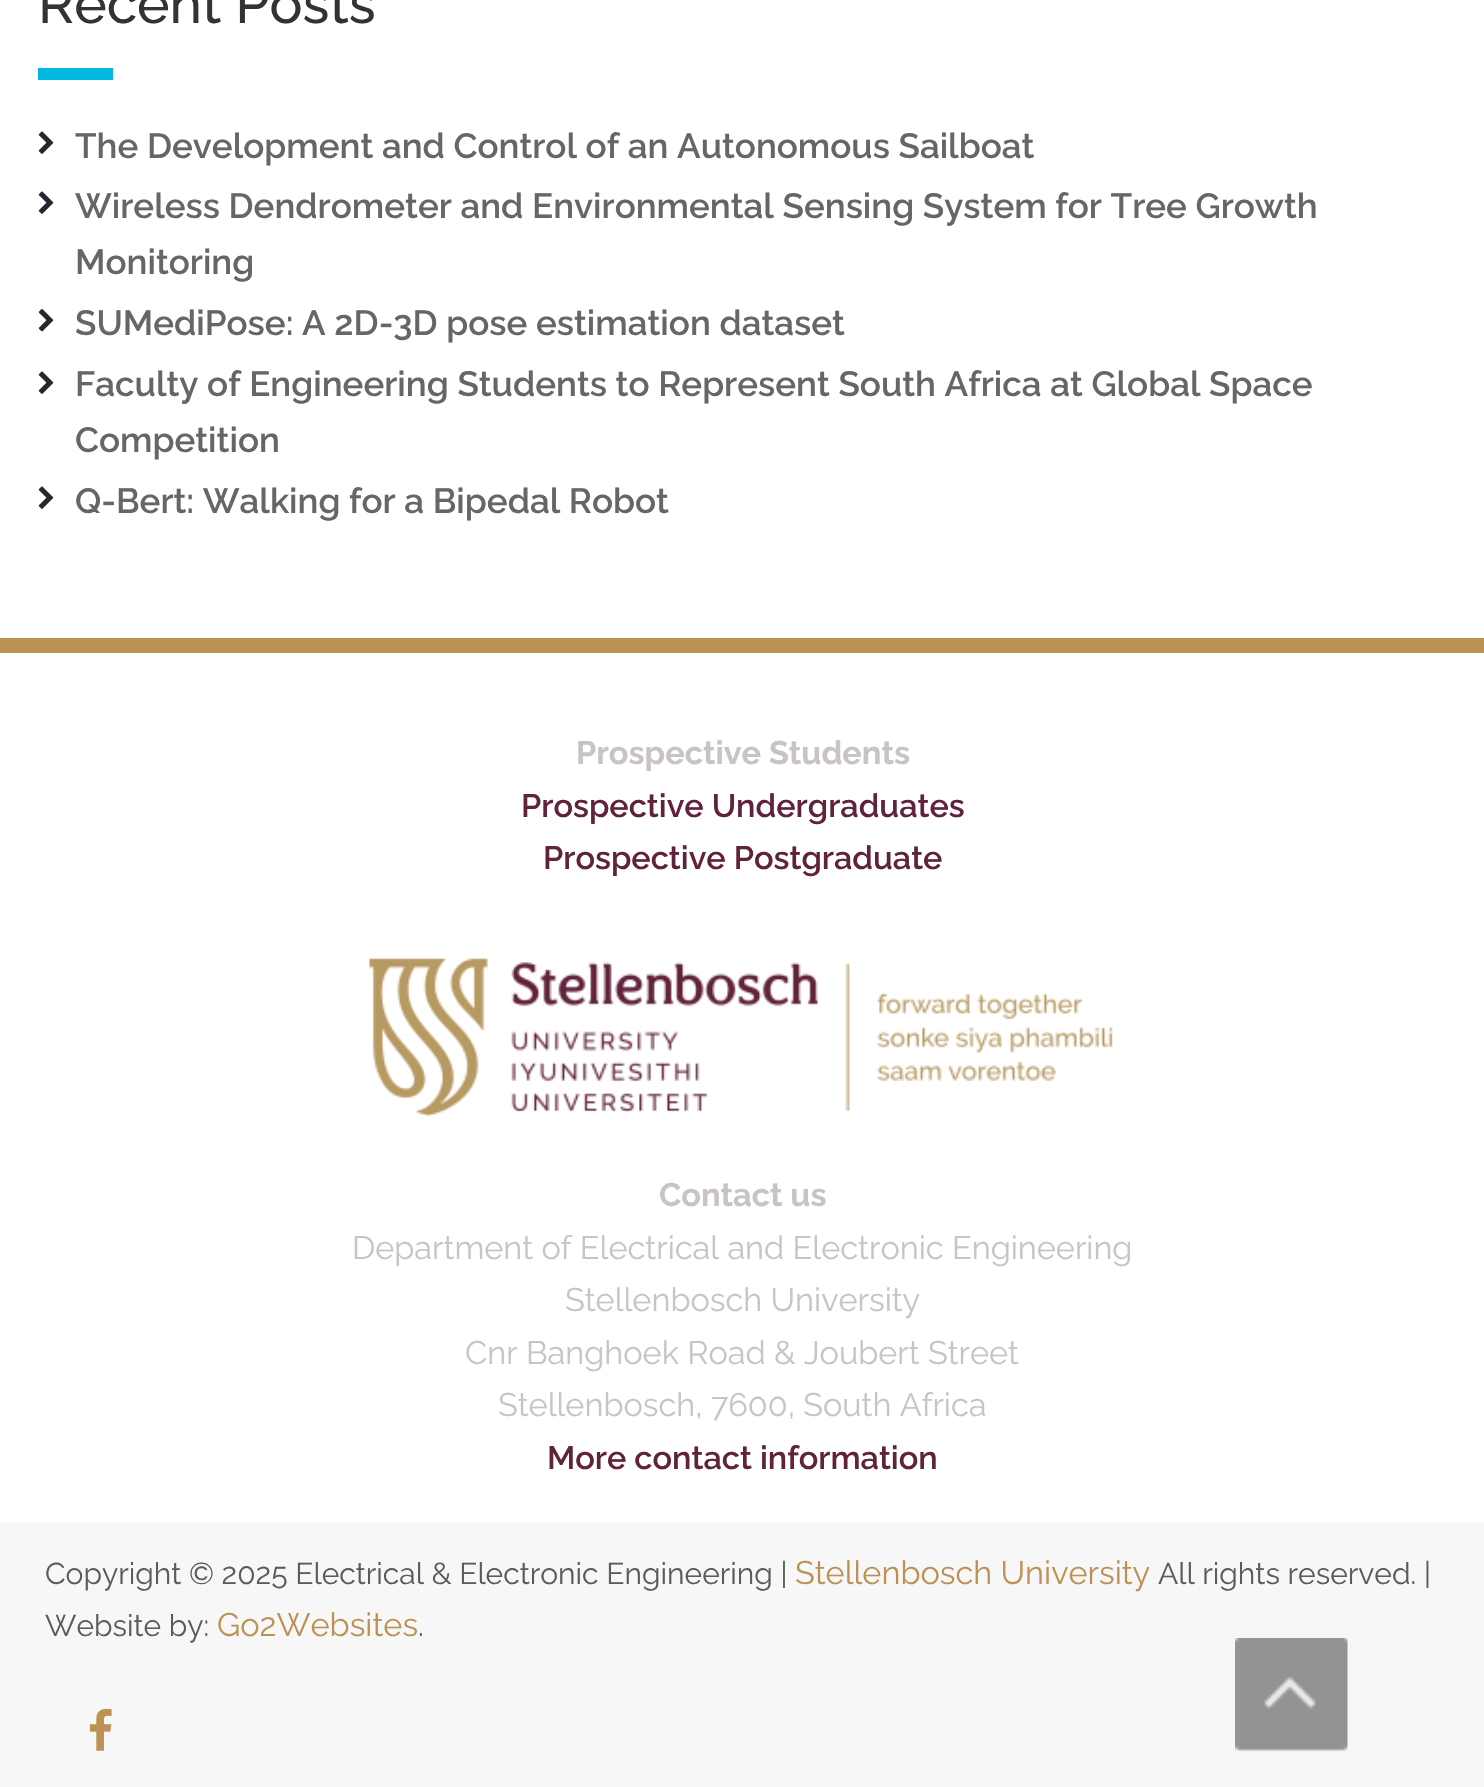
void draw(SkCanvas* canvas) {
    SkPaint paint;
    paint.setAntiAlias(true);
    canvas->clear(0xFFFFFFFF);
    SkFont font1(fontMgr->matchFamilyStyle("Raleway", SkFontStyle(500, SkFontStyle::kNormal_Width, SkFontStyle::kUpright_Slant)), 55);
    font1.setSubpixel(true);
    paint.setColor(0xFF333333);
    canvas->drawString("Recent Posts", 38, 23, font1, paint);
    paint.setColor(0xFF00B8E0);
    canvas->drawRect(SkRect::MakeXYWH(38, 68, 75, 12), paint);
    canvas->drawImageRect(SkImages::DeferredFromEncodedData(SkData::MakeFromFileName("img1.png")), SkRect::MakeXYWH(38, 131, 16, 23), SkSamplingOptions());
    SkFont font2(fontMgr->matchFamilyStyle("Raleway", SkFontStyle(600, SkFontStyle::kNormal_Width, SkFontStyle::kUpright_Slant)), 35);
    font2.setSubpixel(true);
    paint.setColor(0xFF666666);
    canvas->drawString("The Development and Control of an Autonomous Sailboat", 75, 158, font2, paint);
    canvas->drawImageRect(SkImages::DeferredFromEncodedData(SkData::MakeFromFileName("img1.png")), SkRect::MakeXYWH(38, 191, 16, 23), SkSamplingOptions());
    canvas->drawString("Wireless Dendrometer and Environmental Sensing System for Tree Growth", 75, 218, font2, paint);
    canvas->drawString("Monitoring", 75, 274, font2, paint);
    canvas->drawImageRect(SkImages::DeferredFromEncodedData(SkData::MakeFromFileName("img2.png")), SkRect::MakeXYWH(38, 309, 16, 23), SkSamplingOptions());
    canvas->drawString("SUMediPose: A 2D-3D pose estimation dataset", 75, 335, font2, paint);
    canvas->drawImageRect(SkImages::DeferredFromEncodedData(SkData::MakeFromFileName("img1.png")), SkRect::MakeXYWH(38, 371, 16, 23), SkSamplingOptions());
    canvas->drawString("Faculty of Engineering Students to Represent South Africa at Global Space", 75, 396, font2, paint);
    canvas->drawString("Competition", 75, 452, font2, paint);
    canvas->drawImageRect(SkImages::DeferredFromEncodedData(SkData::MakeFromFileName("img1.png")), SkRect::MakeXYWH(38, 486, 16, 23), SkSamplingOptions());
    canvas->drawString("Q-Bert: Walking for a Bipedal Robot", 75, 513, font2, paint);
    paint.setColor(0xFFBC9254);
    canvas->drawRect(SkRect::MakeXYWH(0, 638, 1484, 15), paint);
    SkFont font3(fontMgr->matchFamilyStyle("Raleway", SkFontStyle::Bold()), 32.5f);
    font3.setSubpixel(true);
    paint.setColor(0xFFC9C4C3);
    canvas->drawString("Prospective Students", 576, 764, font3, paint);
    SkFont font4(fontMgr->matchFamilyStyle("Raleway", SkFontStyle(600, SkFontStyle::kNormal_Width, SkFontStyle::kUpright_Slant)), 32.5f);
    font4.setSubpixel(true);
    paint.setColor(0xFF61223B);
    canvas->drawString("Prospective Undergraduates", 521, 817, font4, paint);
    canvas->drawString("Prospective Postgraduate", 543, 869, font4, paint);
    canvas->drawImageRect(SkImages::DeferredFromEncodedData(SkData::MakeFromFileName("img3.png")), SkRect::MakeXYWH(369, 958, 744, 159), SkSamplingOptions());
    paint.setColor(0xFFC9C4C3);
    canvas->drawString("Contact us", 659, 1206, font3, paint);
    SkFont font5(fontMgr->matchFamilyStyle("Raleway", SkFontStyle::Normal()), 32.5f);
    font5.setSubpixel(true);
    canvas->drawString("Department of Electrical and Electronic Engineering", 352, 1259, font5, paint);
    canvas->drawString("Stellenbosch University", 565, 1311, font5, paint);
    canvas->drawString("Cnr Banghoek Road & Joubert Street", 465, 1364, font5, paint);
    canvas->drawString("Stellenbosch, 7600, South Africa", 498, 1416, font5, paint);
    paint.setColor(0xFF61223B);
    canvas->drawString("More contact information", 547, 1469, font4, paint);
    paint.setColor(0xFFF7F7F7);
    canvas->drawRect(SkRect::MakeXYWH(0, 1523, 1484, 264), paint);
    SkFont font6(fontMgr->matchFamilyStyle("Raleway", SkFontStyle::Normal()), 30);
    font6.setSubpixel(true);
    paint.setColor(0xFF5B5B5B);
    canvas->drawString("Copyright © 2025 Electrical & Electronic Engineering |", 45, 1584, font6, paint);
    paint.setColor(0xFFBC9254);
    canvas->drawString("Stellenbosch University", 795, 1584, font5, paint);
    paint.setColor(0xFF5B5B5B);
    canvas->drawString("All rights reserved. |", 1158, 1584, font6, paint);
    canvas->drawString("Website by:", 45, 1636, font6, paint);
    paint.setColor(0xFFBC9254);
    canvas->drawString("Go2Websites", 217, 1636, font5, paint);
    paint.setColor(0xFF5B5B5B);
    canvas->drawString(".", 418, 1636, font6, paint);
    canvas->drawImageRect(SkImages::DeferredFromEncodedData(SkData::MakeFromFileName("img4.png")), SkRect::MakeXYWH(89, 1708, 23, 43), SkSamplingOptions());
    canvas->drawImageRect(SkImages::DeferredFromEncodedData(SkData::MakeFromFileName("img5.png")), SkRect::MakeXYWH(1235, 1638, 113, 114), SkSamplingOptions());
}
